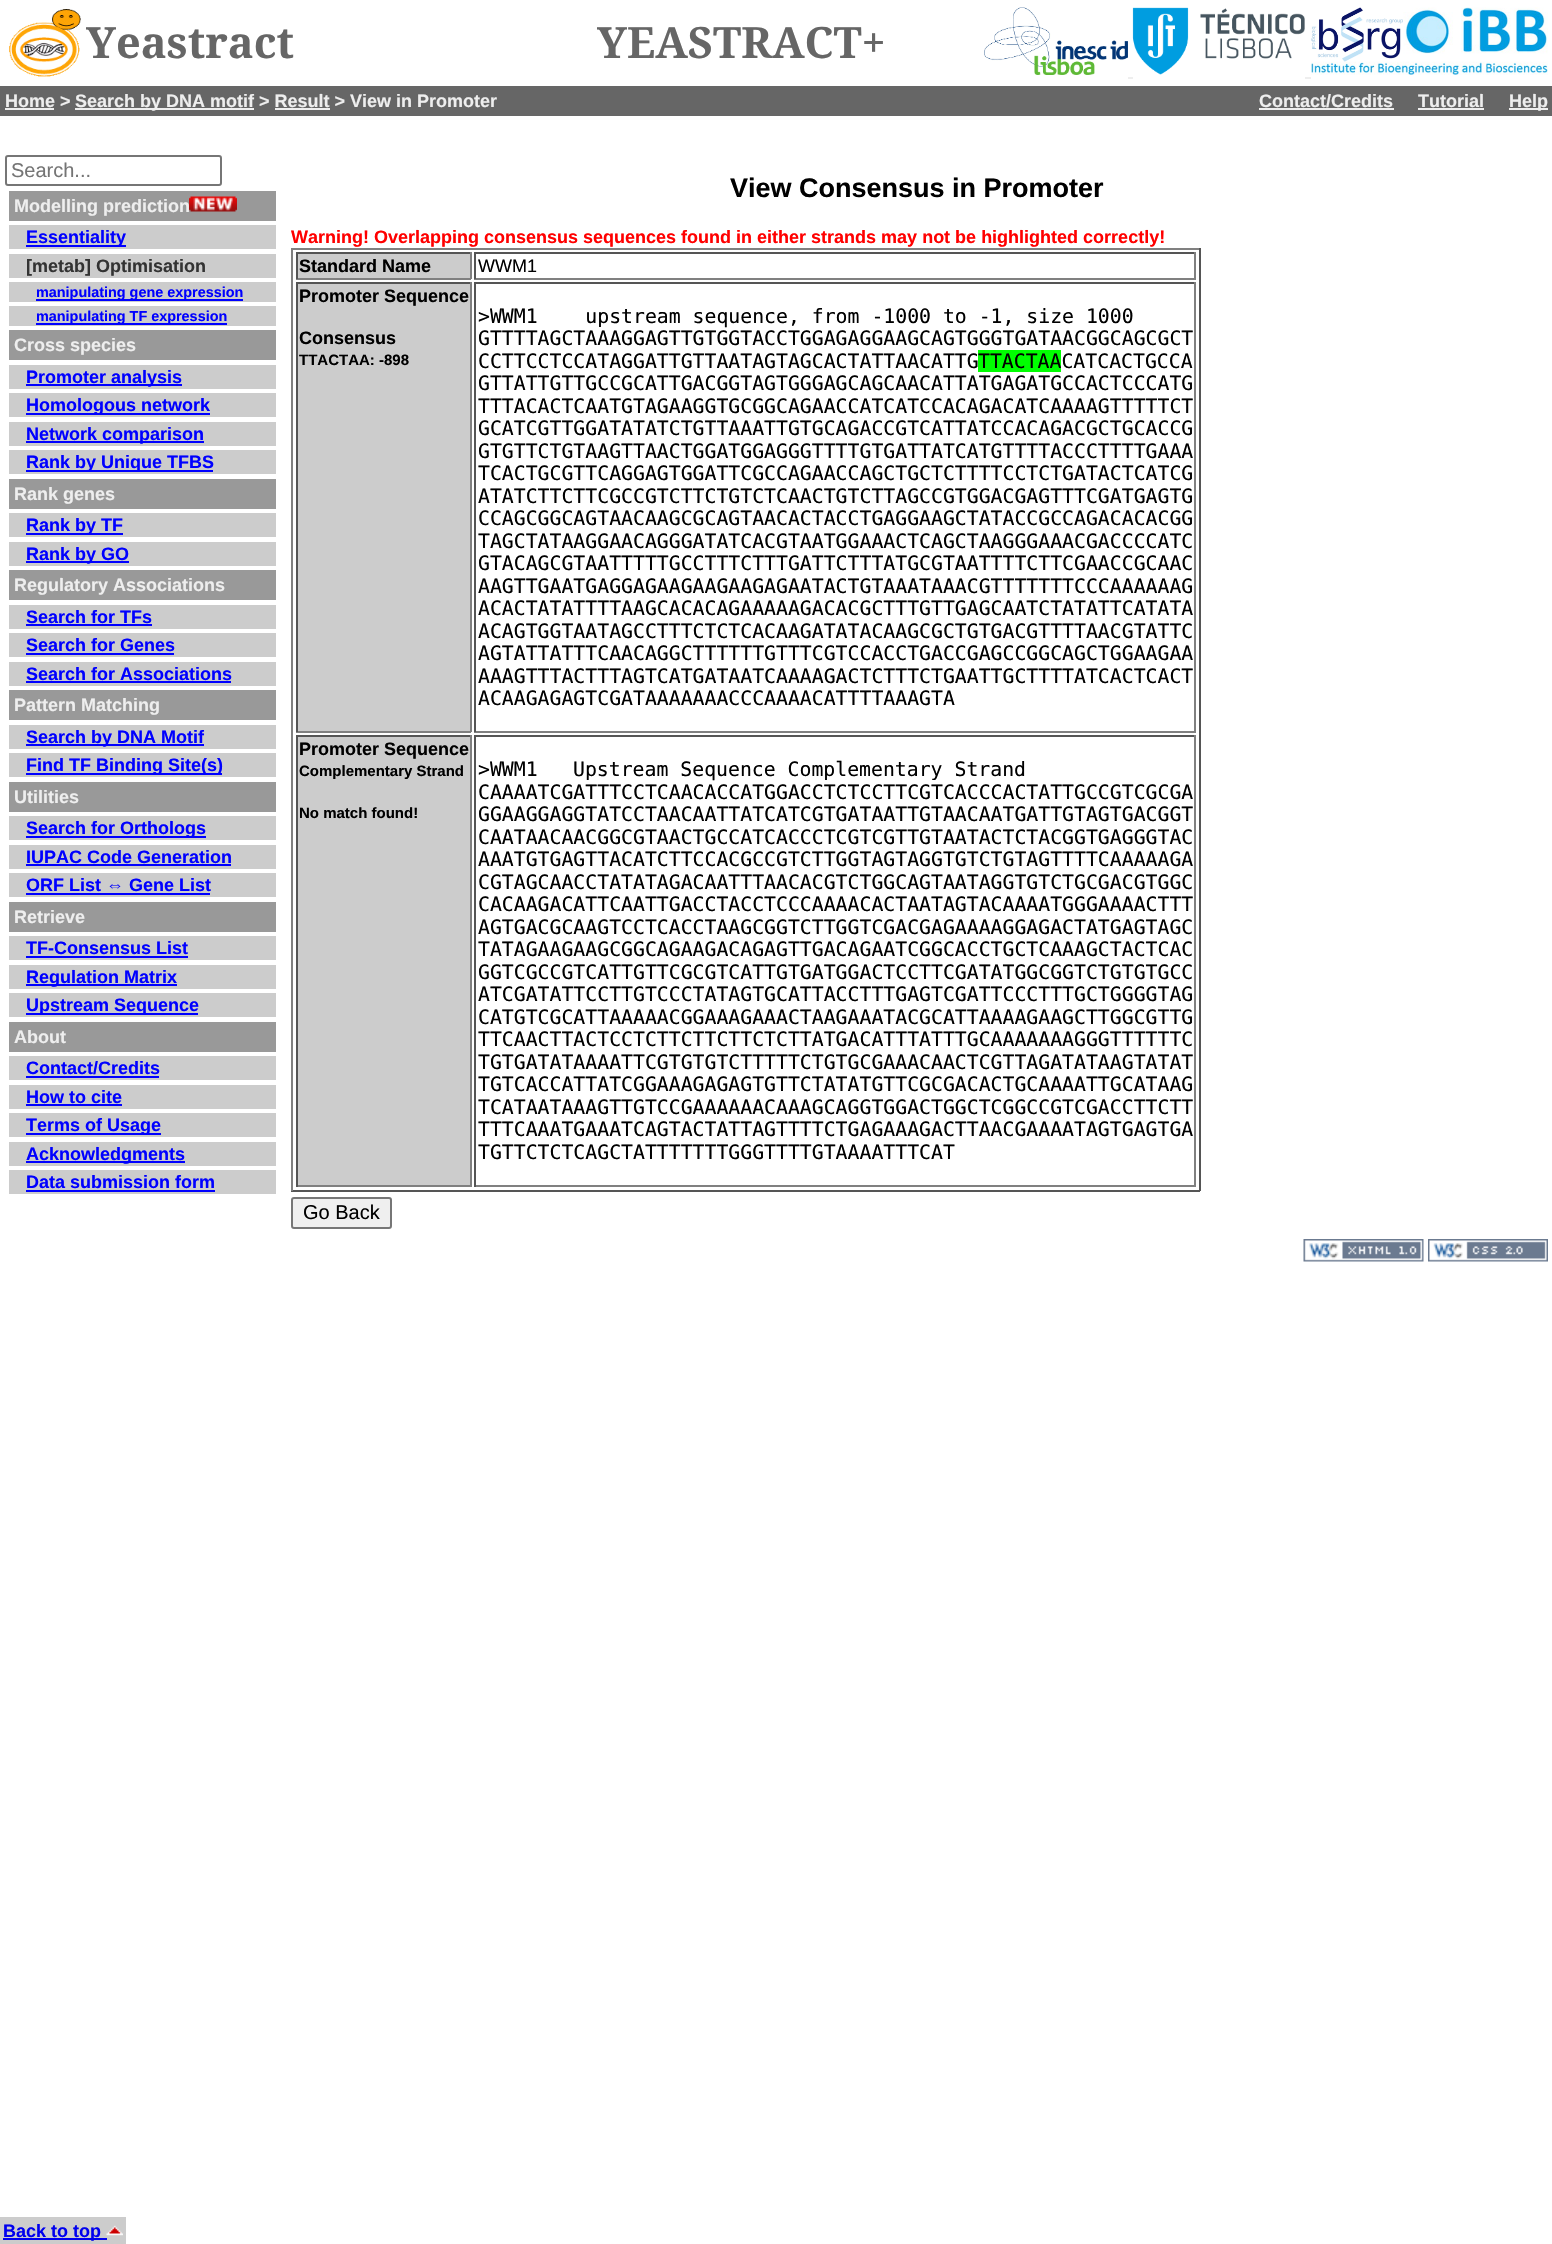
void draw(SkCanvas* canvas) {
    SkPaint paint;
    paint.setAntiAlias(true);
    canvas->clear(0xFFFFFFFF);
    canvas->drawImageRect(SkImages::DeferredFromEncodedData(SkData::MakeFromFileName("img1.png")), SkRect::MakeXYWH(9, 9, 72, 68), SkSamplingOptions());
    SkFont font1(fontMgr->matchFamilyStyle("Droid Serif", SkFontStyle::Bold()), 43.25f);
    font1.setSubpixel(true);
    paint.setColor(0xFF666666);
    canvas->drawString("Yeastract", 86, 58, font1, paint);
    canvas->drawString("YEASTRACT+", 597, 58, font1, paint);
    canvas->drawImageRect(SkImages::DeferredFromEncodedData(SkData::MakeFromFileName("img2.png")), SkRect::MakeXYWH(984, 7, 144, 68), SkSamplingOptions());
    canvas->drawImageRect(SkImages::DeferredFromEncodedData(SkData::MakeFromFileName("img3.png")), SkRect::MakeXYWH(1132, 7, 173, 68), SkSamplingOptions());
    canvas->drawImageRect(SkImages::DeferredFromEncodedData(SkData::MakeFromFileName("img4.png")), SkRect::MakeXYWH(1311, 7, 237, 68), SkSamplingOptions());
    paint.setColor(0xFFEEEEEE);
    canvas->drawRect(SkRect::MakeXYWH(1128, 77, 5, 2), paint);
    canvas->drawRect(SkRect::MakeXYWH(1305, 77, 6, 2), paint);
    paint.setColor(0xFF666666);
    canvas->drawRect(SkRect::MakeXYWH(0, 86, 1552, 30), paint);
    SkFont font2(fontMgr->matchFamilyStyle("Liberation Sans", SkFontStyle::Bold()), 18);
    font2.setSubpixel(true);
    paint.setColor(0xFFEEEEEE);
    canvas->drawString("Home >", 5, 107, font2, paint);
    canvas->drawRect(SkRect::MakeXYWH(5, 108, 49, 2), paint);
    canvas->drawRect(SkRect::MakeXYWH(75, 108, 179, 2), paint);
    canvas->drawString("Search by DNA motif > Result > View in Promoter", 75, 107, font2, paint);
    canvas->drawRect(SkRect::MakeXYWH(275, 108, 55, 2), paint);
    canvas->drawString("Contact/Credits", 1259, 107, font2, paint);
    canvas->drawRect(SkRect::MakeXYWH(1259, 108, 135, 2), paint);
    canvas->drawString("Tutorial", 1418, 107, font2, paint);
    canvas->drawRect(SkRect::MakeXYWH(1418, 108, 66, 2), paint);
    canvas->drawRect(SkRect::MakeXYWH(1509, 108, 39, 2), paint);
    canvas->drawString("Help", 1509, 107, font2, paint);
    paint.setStyle(SkPaint::kStroke_Style);
    paint.setStrokeWidth(2);
    paint.setColor(0xFF767676);
    canvas->drawRoundRect(SkRect::MakeXYWH(6, 156, 215, 29), 2, 2, paint);
    SkFont font3(fontMgr->matchFamilyStyle("Liberation Sans", SkFontStyle::Normal()), 20);
    font3.setSubpixel(true);
    paint.setStyle(SkPaint::kFill_Style);
    paint.setColor(0xFF757575);
    canvas->drawString("Search...", 11, 177, font3, paint);
    paint.setColor(0xFF999999);
    canvas->drawRect(SkRect::MakeXYWH(9, 191, 267, 30), paint);
    paint.setColor(0xFFEEEEEE);
    canvas->drawString("Modelling prediction", 14, 212, font2, paint);
    canvas->drawImageRect(SkImages::DeferredFromEncodedData(SkData::MakeFromFileName("img5.png")), SkRect::MakeXYWH(189, 196, 48, 16), SkSamplingOptions());
    paint.setColor(0xFFCCCCCC);
    canvas->drawRect(SkRect::MakeXYWH(9, 225, 267, 24), paint);
    paint.setColor(0xFF0000FF);
    canvas->drawRect(SkRect::MakeXYWH(26, 245, 100, 2), paint);
    canvas->drawString("Essentiality", 26, 243, font2, paint);
    paint.setColor(0xFFCCCCCC);
    canvas->drawRect(SkRect::MakeXYWH(9, 254, 267, 24), paint);
    paint.setColor(0xFF333333);
    canvas->drawString("[metab] Optimisation", 26, 272, font2, paint);
    paint.setColor(0xFFCCCCCC);
    canvas->drawRect(SkRect::MakeXYWH(9, 282, 267, 20), paint);
    paint.setColor(0xFF0000FF);
    canvas->drawRect(SkRect::MakeXYWH(36, 299, 207, 2), paint);
    SkFont font4(fontMgr->matchFamilyStyle("Liberation Sans", SkFontStyle::Bold()), 14.4f);
    font4.setSubpixel(true);
    canvas->drawString("manipulating gene expression", 36, 297, font4, paint);
    paint.setColor(0xFFCCCCCC);
    canvas->drawRect(SkRect::MakeXYWH(9, 306, 267, 20), paint);
    paint.setColor(0xFF0000FF);
    canvas->drawRect(SkRect::MakeXYWH(36, 323, 191, 2), paint);
    canvas->drawString("manipulating TF expression", 36, 321, font4, paint);
    paint.setColor(0xFF999999);
    canvas->drawRect(SkRect::MakeXYWH(9, 330, 267, 30), paint);
    paint.setColor(0xFFEEEEEE);
    canvas->drawString("Cross species", 14, 351, font2, paint);
    paint.setColor(0xFFCCCCCC);
    canvas->drawRect(SkRect::MakeXYWH(9, 365, 267, 24), paint);
    paint.setColor(0xFF0000FF);
    canvas->drawRect(SkRect::MakeXYWH(26, 384, 156, 2), paint);
    canvas->drawString("Promoter analysis", 26, 383, font2, paint);
    paint.setColor(0xFFCCCCCC);
    canvas->drawRect(SkRect::MakeXYWH(9, 393, 267, 24), paint);
    paint.setColor(0xFF0000FF);
    canvas->drawRect(SkRect::MakeXYWH(26, 413, 184, 2), paint);
    canvas->drawString("Homologous network", 26, 411, font2, paint);
    paint.setColor(0xFFCCCCCC);
    canvas->drawRect(SkRect::MakeXYWH(9, 422, 267, 24), paint);
    paint.setColor(0xFF0000FF);
    canvas->drawRect(SkRect::MakeXYWH(26, 441, 178, 2), paint);
    canvas->drawString("Network comparison", 26, 440, font2, paint);
    paint.setColor(0xFFCCCCCC);
    canvas->drawRect(SkRect::MakeXYWH(9, 450, 267, 24), paint);
    paint.setColor(0xFF0000FF);
    canvas->drawRect(SkRect::MakeXYWH(26, 470, 187, 2), paint);
    canvas->drawString("Rank by Unique TFBS", 26, 468, font2, paint);
    paint.setColor(0xFF999999);
    canvas->drawRect(SkRect::MakeXYWH(9, 479, 267, 30), paint);
    paint.setColor(0xFFEEEEEE);
    canvas->drawString("Rank genes", 14, 500, font2, paint);
    paint.setColor(0xFFCCCCCC);
    canvas->drawRect(SkRect::MakeXYWH(9, 513, 267, 24), paint);
    paint.setColor(0xFF0000FF);
    canvas->drawRect(SkRect::MakeXYWH(26, 533, 97, 2), paint);
    canvas->drawString("Rank by TF", 26, 531, font2, paint);
    paint.setColor(0xFFCCCCCC);
    canvas->drawRect(SkRect::MakeXYWH(9, 542, 267, 24), paint);
    paint.setColor(0xFF0000FF);
    canvas->drawRect(SkRect::MakeXYWH(26, 561, 103, 2), paint);
    canvas->drawString("Rank by GO", 26, 560, font2, paint);
    paint.setColor(0xFF999999);
    canvas->drawRect(SkRect::MakeXYWH(9, 570, 267, 30), paint);
    paint.setColor(0xFFEEEEEE);
    canvas->drawString("Regulatory Associations", 14, 591, font2, paint);
    paint.setColor(0xFFCCCCCC);
    canvas->drawRect(SkRect::MakeXYWH(9, 605, 267, 24), paint);
    paint.setColor(0xFF0000FF);
    canvas->drawString("Search for TFs", 26, 623, font2, paint);
    canvas->drawRect(SkRect::MakeXYWH(26, 624, 126, 2), paint);
    paint.setColor(0xFFCCCCCC);
    canvas->drawRect(SkRect::MakeXYWH(9, 633, 267, 24), paint);
    paint.setColor(0xFF0000FF);
    canvas->drawString("Search for Genes", 26, 651, font2, paint);
    canvas->drawRect(SkRect::MakeXYWH(26, 653, 148, 2), paint);
    paint.setColor(0xFFCCCCCC);
    canvas->drawRect(SkRect::MakeXYWH(9, 662, 267, 24), paint);
    paint.setColor(0xFF0000FF);
    canvas->drawString("Search for Associations", 26, 680, font2, paint);
    canvas->drawRect(SkRect::MakeXYWH(26, 681, 205, 2), paint);
    paint.setColor(0xFF999999);
    canvas->drawRect(SkRect::MakeXYWH(9, 690, 267, 30), paint);
    paint.setColor(0xFFEEEEEE);
    canvas->drawString("Pattern Matching", 14, 711, font2, paint);
    paint.setColor(0xFFCCCCCC);
    canvas->drawRect(SkRect::MakeXYWH(9, 725, 267, 24), paint);
    paint.setColor(0xFF0000FF);
    canvas->drawRect(SkRect::MakeXYWH(26, 744, 178, 2), paint);
    canvas->drawString("Search by DNA Motif", 26, 743, font2, paint);
    paint.setColor(0xFFCCCCCC);
    canvas->drawRect(SkRect::MakeXYWH(9, 753, 267, 24), paint);
    paint.setColor(0xFF0000FF);
    canvas->drawRect(SkRect::MakeXYWH(26, 773, 196, 2), paint);
    canvas->drawString("Find TF Binding Site(s)", 26, 771, font2, paint);
    paint.setColor(0xFF999999);
    canvas->drawRect(SkRect::MakeXYWH(9, 782, 267, 30), paint);
    paint.setColor(0xFFEEEEEE);
    canvas->drawString("Utilities", 14, 803, font2, paint);
    paint.setColor(0xFFCCCCCC);
    canvas->drawRect(SkRect::MakeXYWH(9, 816, 267, 24), paint);
    paint.setColor(0xFF0000FF);
    canvas->drawRect(SkRect::MakeXYWH(26, 836, 180, 2), paint);
    canvas->drawString("Search for Orthologs", 26, 834, font2, paint);
    paint.setColor(0xFFCCCCCC);
    canvas->drawRect(SkRect::MakeXYWH(9, 845, 267, 24), paint);
    paint.setColor(0xFF0000FF);
    canvas->drawString("IUPAC Code Generation", 26, 863, font2, paint);
    canvas->drawRect(SkRect::MakeXYWH(26, 864, 205, 2), paint);
    paint.setColor(0xFFCCCCCC);
    canvas->drawRect(SkRect::MakeXYWH(9, 873, 267, 24), paint);
    paint.setColor(0xFF0000FF);
    canvas->drawString("ORF List ⇔ Gene List", 26, 891, font2, paint);
    canvas->drawRect(SkRect::MakeXYWH(26, 893, 184, 2), paint);
    paint.setColor(0xFF999999);
    canvas->drawRect(SkRect::MakeXYWH(9, 902, 267, 30), paint);
    paint.setColor(0xFFEEEEEE);
    canvas->drawString("Retrieve", 14, 923, font2, paint);
    paint.setColor(0xFFCCCCCC);
    canvas->drawRect(SkRect::MakeXYWH(9, 936, 267, 24), paint);
    paint.setColor(0xFF0000FF);
    canvas->drawString("TF-Consensus List", 26, 954, font2, paint);
    canvas->drawRect(SkRect::MakeXYWH(26, 956, 162, 2), paint);
    paint.setColor(0xFFCCCCCC);
    canvas->drawRect(SkRect::MakeXYWH(9, 965, 267, 24), paint);
    paint.setColor(0xFF0000FF);
    canvas->drawRect(SkRect::MakeXYWH(26, 984, 151, 2), paint);
    canvas->drawString("Regulation Matrix", 26, 983, font2, paint);
    paint.setColor(0xFFCCCCCC);
    canvas->drawRect(SkRect::MakeXYWH(9, 993, 267, 24), paint);
    paint.setColor(0xFF0000FF);
    canvas->drawRect(SkRect::MakeXYWH(26, 1013, 172, 2), paint);
    canvas->drawString("Upstream Sequence", 26, 1011, font2, paint);
    paint.setColor(0xFF999999);
    canvas->drawRect(SkRect::MakeXYWH(9, 1022, 267, 30), paint);
    paint.setColor(0xFFEEEEEE);
    canvas->drawString("About", 14, 1043, font2, paint);
    paint.setColor(0xFFCCCCCC);
    canvas->drawRect(SkRect::MakeXYWH(9, 1056, 267, 24), paint);
    paint.setColor(0xFF0000FF);
    canvas->drawString("Contact/Credits", 26, 1074, font2, paint);
    canvas->drawRect(SkRect::MakeXYWH(26, 1076, 133, 2), paint);
    paint.setColor(0xFFCCCCCC);
    canvas->drawRect(SkRect::MakeXYWH(9, 1085, 267, 24), paint);
    paint.setColor(0xFF0000FF);
    canvas->drawString("How to cite", 26, 1103, font2, paint);
    canvas->drawRect(SkRect::MakeXYWH(26, 1104, 96, 2), paint);
    paint.setColor(0xFFCCCCCC);
    canvas->drawRect(SkRect::MakeXYWH(9, 1113, 267, 24), paint);
    paint.setColor(0xFF0000FF);
    canvas->drawRect(SkRect::MakeXYWH(26, 1133, 135, 2), paint);
    canvas->drawString("Terms of Usage", 26, 1131, font2, paint);
    paint.setColor(0xFFCCCCCC);
    canvas->drawRect(SkRect::MakeXYWH(9, 1142, 267, 24), paint);
    paint.setColor(0xFF0000FF);
    canvas->drawRect(SkRect::MakeXYWH(26, 1161, 159, 2), paint);
    canvas->drawString("Acknowledgments", 26, 1160, font2, paint);
    paint.setColor(0xFFCCCCCC);
    canvas->drawRect(SkRect::MakeXYWH(9, 1170, 267, 24), paint);
    paint.setColor(0xFF0000FF);
    canvas->drawString("Data submission form", 26, 1188, font2, paint);
    canvas->drawRect(SkRect::MakeXYWH(26, 1190, 189, 2), paint);
    paint.setColor(0xFFCCCCCC);
    canvas->drawRect(SkRect::MakeXYWH(0, 2217, 126, 27), paint);
    paint.setColor(0xFF0000EE);
    canvas->drawRect(SkRect::MakeXYWH(3, 2238, 104, 2), paint);
    canvas->drawString("Back to top", 3, 2237, font2, paint);
    canvas->drawImageRect(SkImages::DeferredFromEncodedData(SkData::MakeFromFileName("img6.png")), SkRect::MakeXYWH(106, 2225, 17, 11), SkSamplingOptions());
    SkFont font5(fontMgr->matchFamilyStyle("Liberation Sans", SkFontStyle::Bold()), 27);
    font5.setSubpixel(true);
    paint.setColor(0xFF000000);
    canvas->drawString("View Consensus in Promoter", 730, 197, font5, paint);
    paint.setColor(0xFFFF0000);
    canvas->drawString("Warning! Overlapping consensus sequences found in either strands may not be highlighted correctly!", 291, 243, font2, paint);
    paint.setColor(0xFF808080);
    canvas->drawRect(SkRect::MakeXYWH(291, 248, 909, 2), paint);
    paint.setColor(0xFF555555);
    canvas->drawRect(SkRect::MakeXYWH(1199, 248, 2, 943), paint);
    canvas->drawRect(SkRect::MakeXYWH(291, 1190, 909, 2), paint);
    paint.setColor(0xFF808080);
    canvas->drawRect(SkRect::MakeXYWH(291, 248, 2, 943), paint);
    paint.setColor(0xFFCCCCCC);
    canvas->drawRect(SkRect::MakeXYWH(298, 254, 172, 24), paint);
    paint.setColor(0xFF555555);
    canvas->drawRect(SkRect::MakeXYWH(296, 252, 175, 2), paint);
    paint.setColor(0xFF808080);
    canvas->drawRect(SkRect::MakeXYWH(470, 252, 2, 27), paint);
    canvas->drawRect(SkRect::MakeXYWH(296, 278, 175, 2), paint);
    paint.setColor(0xFF555555);
    canvas->drawRect(SkRect::MakeXYWH(296, 252, 2, 27), paint);
    paint.setColor(0xFF000000);
    canvas->drawString("Standard Name", 299, 272, font2, paint);
    paint.setColor(0xFF555555);
    canvas->drawRect(SkRect::MakeXYWH(474, 252, 722, 2), paint);
    paint.setColor(0xFF808080);
    canvas->drawRect(SkRect::MakeXYWH(1194, 252, 2, 27), paint);
    canvas->drawRect(SkRect::MakeXYWH(474, 278, 722, 2), paint);
    paint.setColor(0xFF555555);
    canvas->drawRect(SkRect::MakeXYWH(474, 252, 2, 27), paint);
    SkFont font6(fontMgr->matchFamilyStyle("Liberation Sans", SkFontStyle::Normal()), 18);
    font6.setSubpixel(true);
    paint.setColor(0xFF000000);
    canvas->drawString("WWM1", 478, 272, font6, paint);
    paint.setColor(0xFFCCCCCC);
    canvas->drawRect(SkRect::MakeXYWH(298, 284, 172, 447), paint);
    paint.setColor(0xFF555555);
    canvas->drawRect(SkRect::MakeXYWH(296, 282, 175, 2), paint);
    paint.setColor(0xFF808080);
    canvas->drawRect(SkRect::MakeXYWH(470, 282, 2, 450), paint);
    canvas->drawRect(SkRect::MakeXYWH(296, 731, 175, 2), paint);
    paint.setColor(0xFF555555);
    canvas->drawRect(SkRect::MakeXYWH(296, 282, 2, 450), paint);
    paint.setColor(0xFF000000);
    canvas->drawString("Promoter Sequence", 299, 302, font2, paint);
    canvas->drawString("Consensus", 299, 344, font2, paint);
    SkFont font7(fontMgr->matchFamilyStyle("Liberation Sans", SkFontStyle::Bold()), 15);
    font7.setSubpixel(true);
    canvas->drawString("TTACTAA: -898", 299, 365, font7, paint);
    paint.setColor(0xFF555555);
    canvas->drawRect(SkRect::MakeXYWH(474, 282, 722, 2), paint);
    paint.setColor(0xFF808080);
    canvas->drawRect(SkRect::MakeXYWH(1194, 282, 2, 450), paint);
    canvas->drawRect(SkRect::MakeXYWH(474, 731, 722, 2), paint);
    paint.setColor(0xFF555555);
    canvas->drawRect(SkRect::MakeXYWH(474, 282, 2, 450), paint);
    SkFont font8(fontMgr->matchFamilyStyle("DejaVu Sans Mono", SkFontStyle::Normal()), 19.8f);
    font8.setSubpixel(true);
    paint.setColor(0xFF000000);
    canvas->drawString(">WWM1    upstream sequence, from -1000 to -1, size 1000", 478, 323, font8, paint);
    canvas->drawString("GTTTTAGCTAAAGGAGTTGTGGTACCTGGAGAGGAAGCAGTGGGTGATAACGGCAGCGCT", 478, 345, font8, paint);
    canvas->drawString("CCTTCCTCCATAGGATTGTTAATAGTAGCACTATTAACATTG", 478, 368, font8, paint);
    paint.setColor(0xFF00FF00);
    canvas->drawRect(SkRect::MakeXYWH(978, 350, 83, 22), paint);
    paint.setColor(0xFF000000);
    canvas->drawString("TTACTAACATCACTGCCA", 978, 368, font8, paint);
    canvas->drawString("GTTATTGTTGCCGCATTGACGGTAGTGGGAGCAGCAACATTATGAGATGCCACTCCCATG", 478, 390, font8, paint);
    canvas->drawString("TTTACACTCAATGTAGAAGGTGCGGCAGAACCATCATCCACAGACATCAAAAGTTTTTCT", 478, 413, font8, paint);
    canvas->drawString("GCATCGTTGGATATATCTGTTAAATTGTGCAGACCGTCATTATCCACAGACGCTGCACCG", 478, 435, font8, paint);
    canvas->drawString("GTGTTCTGTAAGTTAACTGGATGGAGGGTTTTGTGATTATCATGTTTTACCCTTTTGAAA", 478, 458, font8, paint);
    canvas->drawString("TCACTGCGTTCAGGAGTGGATTCGCCAGAACCAGCTGCTCTTTTCCTCTGATACTCATCG", 478, 480, font8, paint);
    canvas->drawString("ATATCTTCTTCGCCGTCTTCTGTCTCAACTGTCTTAGCCGTGGACGAGTTTCGATGAGTG", 478, 503, font8, paint);
    canvas->drawString("CCAGCGGCAGTAACAAGCGCAGTAACACTACCTGAGGAAGCTATACCGCCAGACACACGG", 478, 525, font8, paint);
    canvas->drawString("TAGCTATAAGGAACAGGGATATCACGTAATGGAAACTCAGCTAAGGGAAACGACCCCATC", 478, 548, font8, paint);
    canvas->drawString("GTACAGCGTAATTTTTGCCTTTCTTTGATTCTTTATGCGTAATTTTCTTCGAACCGCAAC", 478, 570, font8, paint);
    canvas->drawString("AAGTTGAATGAGGAGAAGAAGAAGAGAATACTGTAAATAAACGTTTTTTTCCCAAAAAAG", 478, 593, font8, paint);
    canvas->drawString("ACACTATATTTTAAGCACACAGAAAAAGACACGCTTTGTTGAGCAATCTATATTCATATA", 478, 615, font8, paint);
    canvas->drawString("ACAGTGGTAATAGCCTTTCTCTCACAAGATATACAAGCGCTGTGACGTTTTAACGTATTC", 478, 638, font8, paint);
    canvas->drawString("AGTATTATTTCAACAGGCTTTTTTGTTTCGTCCACCTGACCGAGCCGGCAGCTGGAAGAA", 478, 660, font8, paint);
    canvas->drawString("AAAGTTTACTTTAGTCATGATAATCAAAAGACTCTTTCTGAATTGCTTTTATCACTCACT", 478, 683, font8, paint);
    canvas->drawString("ACAAGAGAGTCGATAAAAAAACCCAAAACATTTTAAAGTA", 478, 705, font8, paint);
    paint.setColor(0xFFCCCCCC);
    canvas->drawRect(SkRect::MakeXYWH(298, 737, 172, 448), paint);
    paint.setColor(0xFF555555);
    canvas->drawRect(SkRect::MakeXYWH(296, 735, 175, 2), paint);
    paint.setColor(0xFF808080);
    canvas->drawRect(SkRect::MakeXYWH(470, 735, 2, 452), paint);
    canvas->drawRect(SkRect::MakeXYWH(296, 1185, 175, 2), paint);
    paint.setColor(0xFF555555);
    canvas->drawRect(SkRect::MakeXYWH(296, 735, 2, 452), paint);
    paint.setColor(0xFF000000);
    canvas->drawString("Promoter Sequence", 299, 755, font2, paint);
    canvas->drawString("Complementary Strand", 299, 776, font7, paint);
    canvas->drawString("No match found!", 299, 818, font7, paint);
    paint.setColor(0xFF555555);
    canvas->drawRect(SkRect::MakeXYWH(474, 735, 722, 2), paint);
    paint.setColor(0xFF808080);
    canvas->drawRect(SkRect::MakeXYWH(1194, 735, 2, 452), paint);
    canvas->drawRect(SkRect::MakeXYWH(474, 1185, 722, 2), paint);
    paint.setColor(0xFF555555);
    canvas->drawRect(SkRect::MakeXYWH(474, 735, 2, 452), paint);
    paint.setColor(0xFF000000);
    canvas->drawString(">WWM1", 478, 776, font8, paint);
    canvas->drawString("Upstream Sequence Complementary Strand", 573, 776, font8, paint);
    canvas->drawString("CAAAATCGATTTCCTCAACACCATGGACCTCTCCTTCGTCACCCACTATTGCCGTCGCGA", 478, 799, font8, paint);
    canvas->drawString("GGAAGGAGGTATCCTAACAATTATCATCGTGATAATTGTAACAATGATTGTAGTGACGGT", 478, 821, font8, paint);
    canvas->drawString("CAATAACAACGGCGTAACTGCCATCACCCTCGTCGTTGTAATACTCTACGGTGAGGGTAC", 478, 844, font8, paint);
    canvas->drawString("AAATGTGAGTTACATCTTCCACGCCGTCTTGGTAGTAGGTGTCTGTAGTTTTCAAAAAGA", 478, 866, font8, paint);
    canvas->drawString("CGTAGCAACCTATATAGACAATTTAACACGTCTGGCAGTAATAGGTGTCTGCGACGTGGC", 478, 889, font8, paint);
    canvas->drawString("CACAAGACATTCAATTGACCTACCTCCCAAAACACTAATAGTACAAAATGGGAAAACTTT", 478, 911, font8, paint);
    canvas->drawString("AGTGACGCAAGTCCTCACCTAAGCGGTCTTGGTCGACGAGAAAAGGAGACTATGAGTAGC", 478, 934, font8, paint);
    canvas->drawString("TATAGAAGAAGCGGCAGAAGACAGAGTTGACAGAATCGGCACCTGCTCAAAGCTACTCAC", 478, 956, font8, paint);
    canvas->drawString("GGTCGCCGTCATTGTTCGCGTCATTGTGATGGACTCCTTCGATATGGCGGTCTGTGTGCC", 478, 979, font8, paint);
    canvas->drawString("ATCGATATTCCTTGTCCCTATAGTGCATTACCTTTGAGTCGATTCCCTTTGCTGGGGTAG", 478, 1001, font8, paint);
    canvas->drawString("CATGTCGCATTAAAAACGGAAAGAAACTAAGAAATACGCATTAAAAGAAGCTTGGCGTTG", 478, 1024, font8, paint);
    canvas->drawString("TTCAACTTACTCCTCTTCTTCTTCTCTTATGACATTTATTTGCAAAAAAAGGGTTTTTTC", 478, 1046, font8, paint);
    canvas->drawString("TGTGATATAAAATTCGTGTGTCTTTTTCTGTGCGAAACAACTCGTTAGATATAAGTATAT", 478, 1069, font8, paint);
    canvas->drawString("TGTCACCATTATCGGAAAGAGAGTGTTCTATATGTTCGCGACACTGCAAAATTGCATAAG", 478, 1091, font8, paint);
    canvas->drawString("TCATAATAAAGTTGTCCGAAAAAACAAAGCAGGTGGACTGGCTCGGCCGTCGACCTTCTT", 478, 1114, font8, paint);
    canvas->drawString("TTTCAAATGAAATCAGTACTATTAGTTTTCTGAGAAAGACTTAACGAAAATAGTGAGTGA", 478, 1136, font8, paint);
    canvas->drawString("TGTTCTCTCAGCTATTTTTTTGGGTTTTGTAAAATTTCAT", 478, 1159, font8, paint);
    paint.setColor(0xFFEFEFEF);
    canvas->drawRoundRect(SkRect::MakeXYWH(292, 1198, 99, 30), 2, 2, paint);
    paint.setStyle(SkPaint::kStroke_Style);
    paint.setColor(0xFF767676);
    canvas->drawRoundRect(SkRect::MakeXYWH(292, 1198, 99, 30), 2, 2, paint);
    paint.setStyle(SkPaint::kFill_Style);
    paint.setColor(0xFF000000);
    canvas->drawString("Go Back", 303, 1219, font3, paint);
    canvas->drawImageRect(SkImages::DeferredFromEncodedData(SkData::MakeFromFileName("img7.png")), SkRect::MakeXYWH(1303, 1239, 121, 23), SkSamplingOptions());
    canvas->drawImageRect(SkImages::DeferredFromEncodedData(SkData::MakeFromFileName("img8.png")), SkRect::MakeXYWH(1428, 1239, 120, 23), SkSamplingOptions());
}
